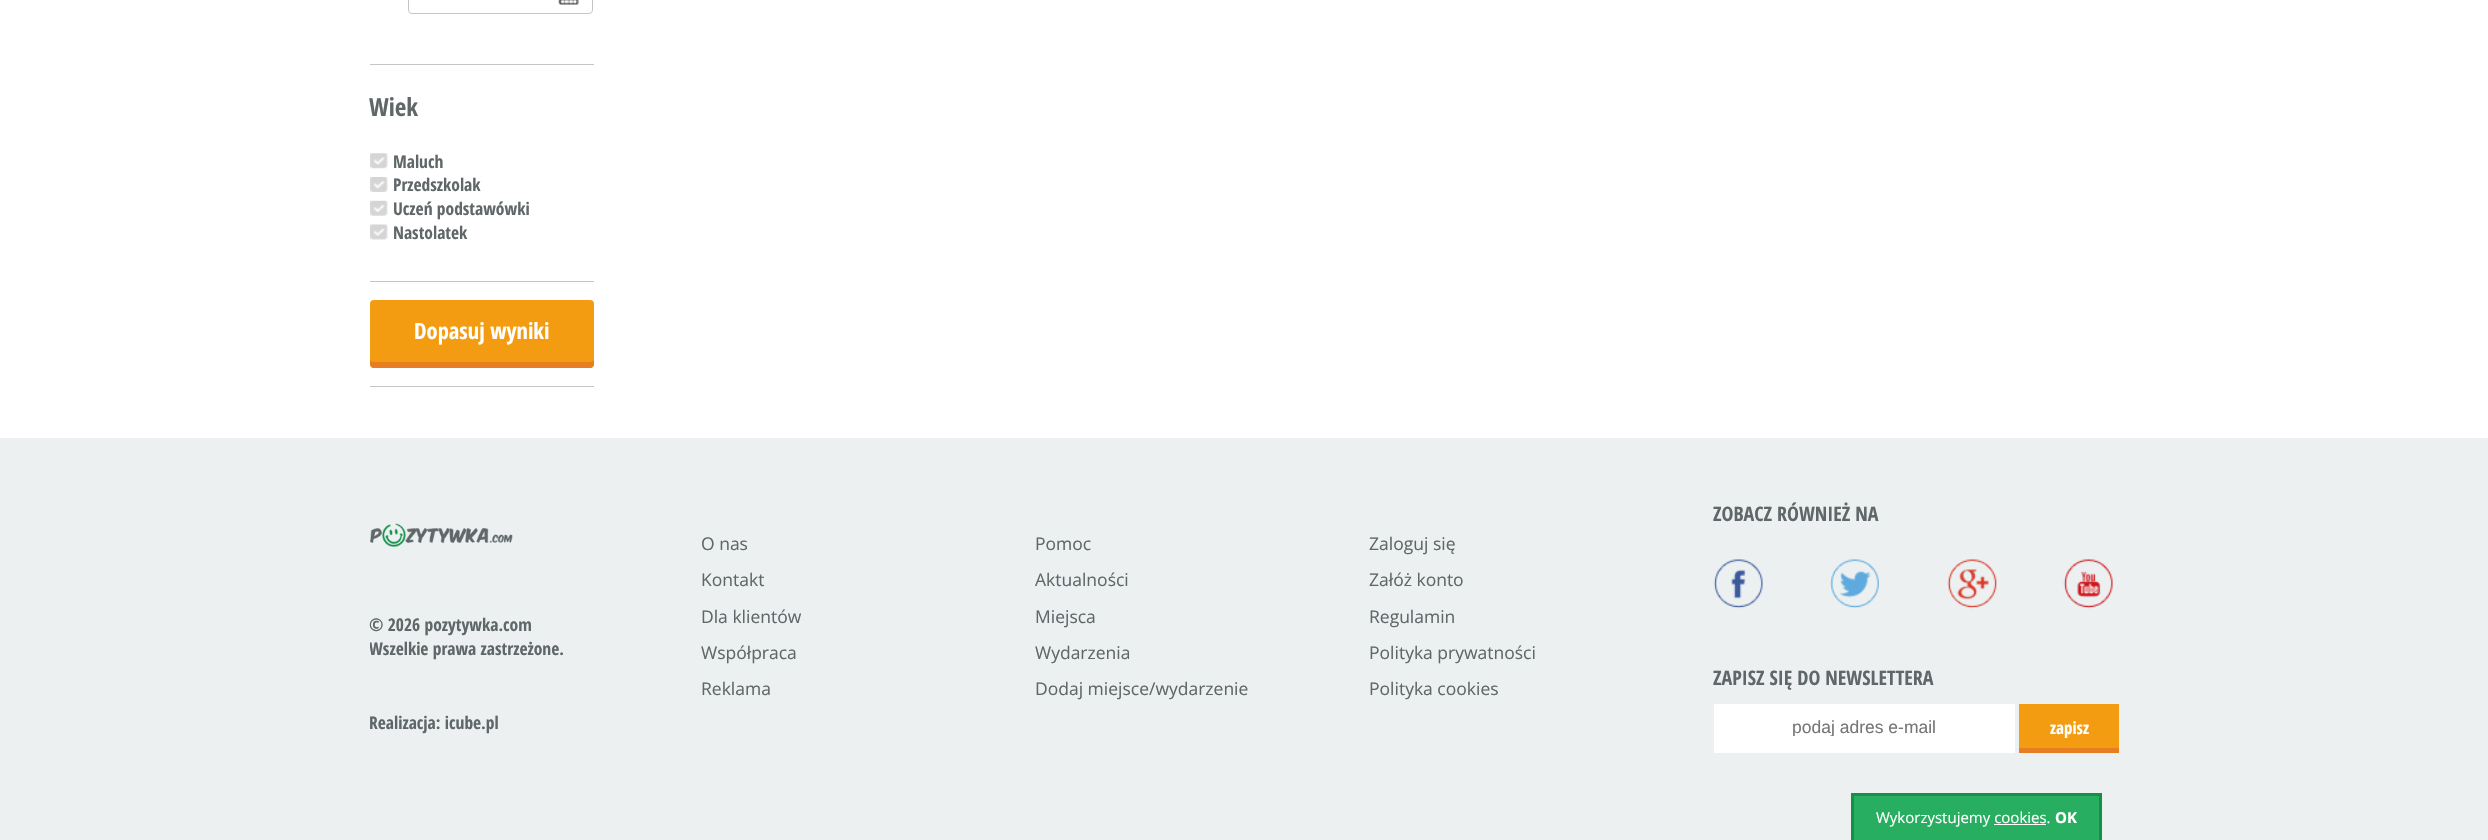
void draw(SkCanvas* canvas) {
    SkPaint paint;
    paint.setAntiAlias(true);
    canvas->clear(0xFFFFFFFF);
    paint.setColor(0xFFC5C5C5);
    canvas->drawRect(SkRect::MakeXYWH(370, 64, 224, 1), paint);
    canvas->drawImageRect(SkImages::DeferredFromEncodedData(SkData::MakeFromFileName("img1.png")), SkRect::MakeXYWH(558, 0, 21, 5), SkSamplingOptions());
    paint.setStyle(SkPaint::kStroke_Style);
    paint.setStrokeWidth(1);
    canvas->drawRoundRect(SkRect::MakeXYWH(408.5f, -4.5f, 184, 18), 3.5f, 3.5f, paint);
    paint.setStyle(SkPaint::kFill_Style);
    canvas->drawRect(SkRect::MakeXYWH(370, 281, 224, 1), paint);
    SkFont font1(fontMgr->matchFamilyStyle("Open Sans Condensed", SkFontStyle::Bold()), 25);
    font1.setSubpixel(true);
    paint.setColor(0xFF5F6769);
    canvas->drawString("Wiek", 369, 116, font1, paint);
    canvas->drawImageRect(SkImages::DeferredFromEncodedData(SkData::MakeFromFileName("img2.png")), SkRect::MakeXYWH(370, 153, 18, 16), SkSamplingOptions());
    SkFont font2(fontMgr->matchFamilyStyle("Open Sans Condensed", SkFontStyle::Bold()), 17.5f);
    font2.setSubpixel(true);
    canvas->drawString("Maluch", 393, 168, font2, paint);
    canvas->drawImageRect(SkImages::DeferredFromEncodedData(SkData::MakeFromFileName("img3.png")), SkRect::MakeXYWH(370, 177, 18, 15), SkSamplingOptions());
    canvas->drawString("Przedszkolak", 393, 191, font2, paint);
    canvas->drawImageRect(SkImages::DeferredFromEncodedData(SkData::MakeFromFileName("img4.png")), SkRect::MakeXYWH(370, 200, 18, 16), SkSamplingOptions());
    canvas->drawString("Uczeń podstawówki", 393, 215, font2, paint);
    canvas->drawImageRect(SkImages::DeferredFromEncodedData(SkData::MakeFromFileName("img5.png")), SkRect::MakeXYWH(370, 224, 18, 16), SkSamplingOptions());
    canvas->drawString("Nastolatek", 393, 239, font2, paint);
    paint.setColor(0xFFC5C5C5);
    canvas->drawRect(SkRect::MakeXYWH(370, 386, 224, 1), paint);
    paint.setColor(0xFFF39C12);
    canvas->drawRoundRect(SkRect::MakeXYWH(370, 300, 224, 68), 4, 4, paint);
    paint.setColor(0xFFE67E22);
    canvas->drawPath(SkPathBuilder().moveTo(370, 359).lineTo(370, 364).cubicTo(370, 366, 372, 368, 374, 368).lineTo(590, 368).cubicTo(592, 368, 594, 366, 594, 364).lineTo(594, 359).cubicTo(594, 361, 592, 362, 590, 362).lineTo(374, 362).cubicTo(372, 362, 370, 361, 370, 359).close().detach(), paint);
    SkFont font3(fontMgr->matchFamilyStyle("Open Sans Condensed", SkFontStyle::Bold()), 22.5f);
    font3.setSubpixel(true);
    paint.setColor(0xFFFFFFFF);
    canvas->drawString("Dopasuj wyniki", 414, 339, font3, paint);
    paint.setColor(0xFFECF0F1);
    canvas->drawRect(SkRect::MakeXYWH(0, 438, 2488, 402), paint);
    canvas->drawImageRect(SkImages::DeferredFromEncodedData(SkData::MakeFromFileName("img6.png")), SkRect::MakeXYWH(370, 523, 143, 24), SkSamplingOptions());
    paint.setColor(0xFF5F6769);
    canvas->drawString("© 2026 pozytywka.com", 369, 631, font2, paint);
    canvas->save();
    canvas->clipRect(SkRect::MakeXYWH(370, 500, 1750, 278));
    canvas->drawString("Wszelkie prawa zastrzeżone.", 369, 655, font2, paint);
    canvas->restore();
    canvas->drawString("Realizacja: icube.pl", 369, 729, font2, paint);
    SkFont font4(fontMgr->matchFamilyStyle("Open Sans", SkFontStyle::Normal()), 17.5f);
    font4.setSubpixel(true);
    canvas->drawString("O nas", 701, 550, font4, paint);
    canvas->drawString("Kontakt", 701, 586, font4, paint);
    canvas->drawString("Dla klientów", 701, 623, font4, paint);
    canvas->drawString("Współpraca", 701, 659, font4, paint);
    canvas->drawString("Reklama", 701, 695, font4, paint);
    canvas->drawString("Pomoc", 1035, 550, font4, paint);
    canvas->drawString("Aktualności", 1035, 586, font4, paint);
    canvas->drawString("Miejsca", 1035, 623, font4, paint);
    canvas->drawString("Wydarzenia", 1035, 659, font4, paint);
    canvas->drawString("Dodaj miejsce/wydarzenie", 1035, 695, font4, paint);
    canvas->drawString("Zaloguj się", 1369, 550, font4, paint);
    canvas->drawString("Załóż konto", 1369, 586, font4, paint);
    canvas->drawString("Regulamin", 1369, 623, font4, paint);
    canvas->drawString("Polityka prywatności", 1369, 659, font4, paint);
    canvas->drawString("Polityka cookies", 1369, 695, font4, paint);
    SkFont font5(fontMgr->matchFamilyStyle("Open Sans Condensed", SkFontStyle::Bold()), 20);
    font5.setSubpixel(true);
    canvas->drawString("ZOBACZ RÓWNIEŻ NA", 1713, 521, font5, paint);
    canvas->drawImageRect(SkImages::DeferredFromEncodedData(SkData::MakeFromFileName("img7.png")), SkRect::MakeXYWH(1713, 559, 50, 50), SkSamplingOptions());
    canvas->drawImageRect(SkImages::DeferredFromEncodedData(SkData::MakeFromFileName("img8.png")), SkRect::MakeXYWH(1830, 559, 49, 50), SkSamplingOptions());
    canvas->drawImageRect(SkImages::DeferredFromEncodedData(SkData::MakeFromFileName("img9.png")), SkRect::MakeXYWH(1947, 559, 50, 50), SkSamplingOptions());
    canvas->drawImageRect(SkImages::DeferredFromEncodedData(SkData::MakeFromFileName("img10.png")), SkRect::MakeXYWH(2063, 559, 50, 50), SkSamplingOptions());
    canvas->drawString("ZAPISZ SIĘ DO NEWSLETTERA", 1713, 685, font5, paint);
    paint.setColor(0xFFFFFFFF);
    canvas->drawRect(SkRect::MakeXYWH(1714, 704, 301, 49), paint);
    canvas->save();
    canvas->clipRect(SkRect::MakeXYWH(1714, 716, 301, 20));
    SkFont font6(fontMgr->matchFamilyStyle("Liberation Sans", SkFontStyle::Normal()), 17.5f);
    font6.setSubpixel(true);
    paint.setColor(0xFF767676);
    canvas->drawString("podaj adres e-mail", 1792, 733, font6, paint);
    canvas->restore();
    paint.setColor(0xFFF39C12);
    canvas->drawRect(SkRect::MakeXYWH(2019, 704, 100, 44), paint);
    paint.setColor(0xFFE67E22);
    canvas->drawRect(SkRect::MakeXYWH(2019, 748, 100, 5), paint);
    SkFont font7(fontMgr->matchFamilyStyle("Open Sans Condensed", SkFontStyle::Bold()), 17);
    font7.setSubpixel(true);
    paint.setColor(0xFFFFFFFF);
    canvas->drawString("zapisz", 2050, 734, font7, paint);
    paint.setColor(0xFF27AE60);
    canvas->drawRect(SkRect::MakeXYWH(1854, 796, 245, 44), paint);
    paint.setColor(0xFF139149);
    canvas->drawRect(SkRect::MakeXYWH(1851, 793, 250, 3), paint);
    canvas->drawRect(SkRect::MakeXYWH(2099, 793, 3, 47), paint);
    canvas->drawRect(SkRect::MakeXYWH(1851, 793, 3, 47), paint);
    SkFont font8(fontMgr->matchFamilyStyle("Open Sans", SkFontStyle::Normal()), 15);
    font8.setSubpixel(true);
    paint.setColor(0xFFFFFFFF);
    canvas->drawString("Wykorzystujemy cookies.", 1876, 823, font8, paint);
    SkFont font9(fontMgr->matchFamilyStyle("Open Sans", SkFontStyle::Bold()), 15);
    font9.setSubpixel(true);
    canvas->drawString("OK", 2055, 823, font9, paint);
    canvas->drawRect(SkRect::MakeXYWH(1994, 824, 52, 1), paint);
}
